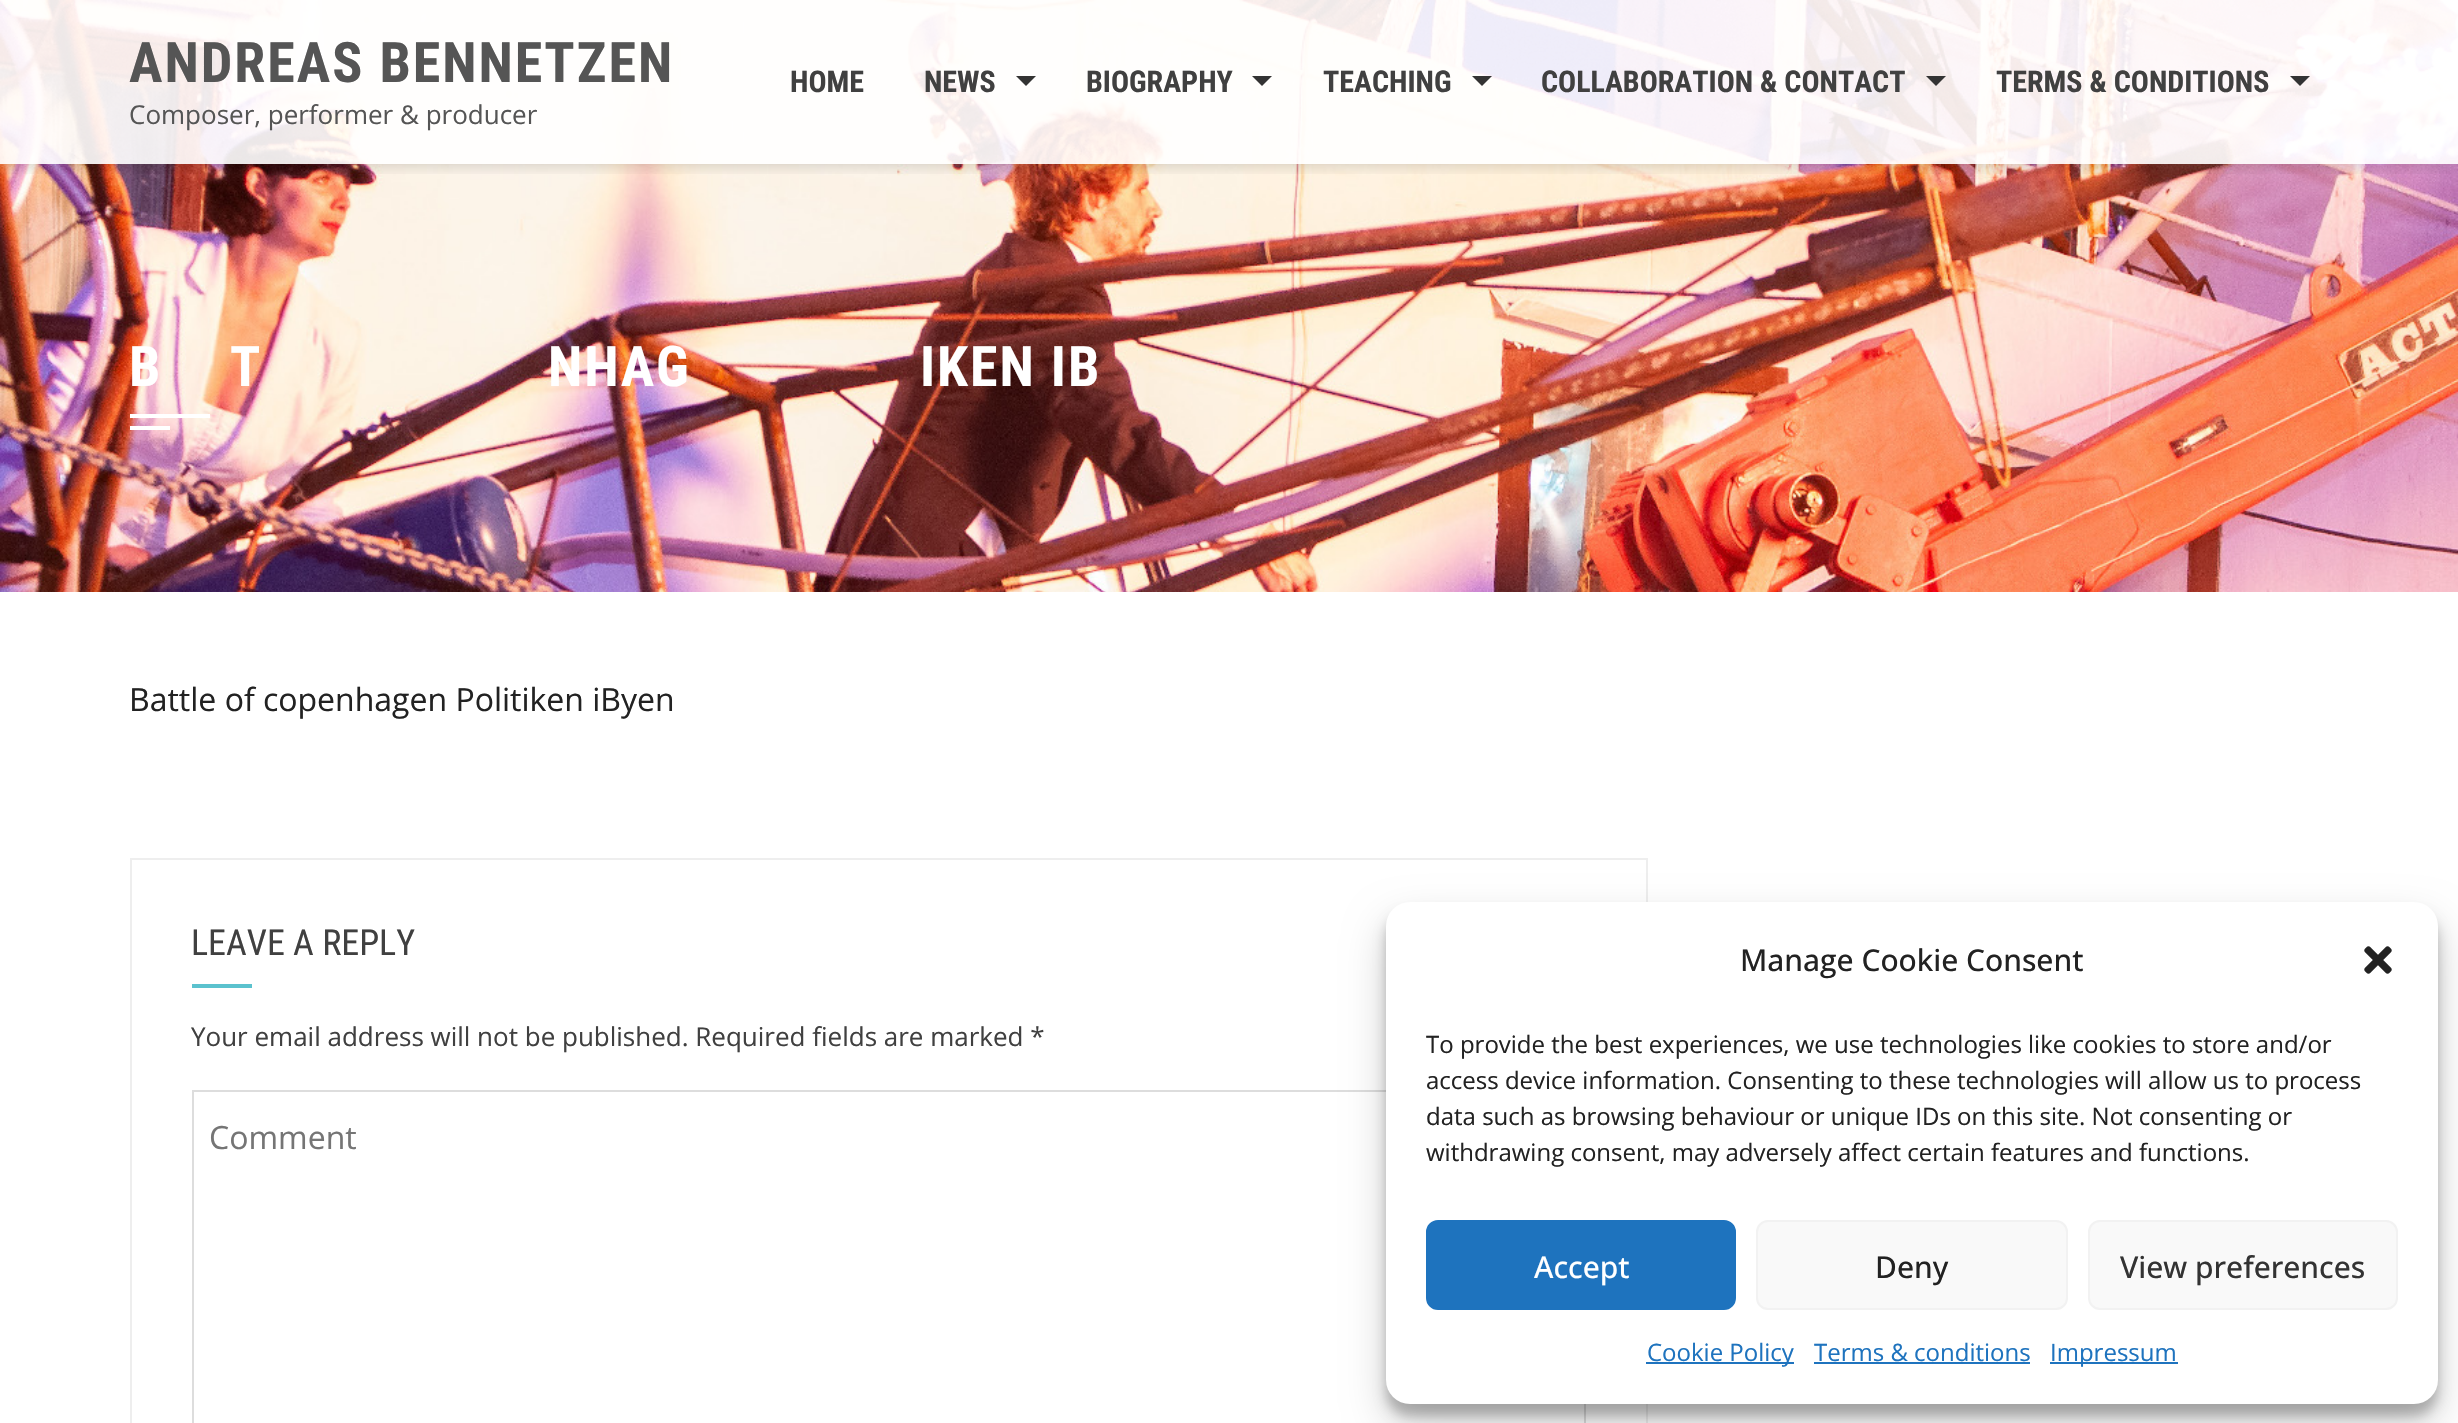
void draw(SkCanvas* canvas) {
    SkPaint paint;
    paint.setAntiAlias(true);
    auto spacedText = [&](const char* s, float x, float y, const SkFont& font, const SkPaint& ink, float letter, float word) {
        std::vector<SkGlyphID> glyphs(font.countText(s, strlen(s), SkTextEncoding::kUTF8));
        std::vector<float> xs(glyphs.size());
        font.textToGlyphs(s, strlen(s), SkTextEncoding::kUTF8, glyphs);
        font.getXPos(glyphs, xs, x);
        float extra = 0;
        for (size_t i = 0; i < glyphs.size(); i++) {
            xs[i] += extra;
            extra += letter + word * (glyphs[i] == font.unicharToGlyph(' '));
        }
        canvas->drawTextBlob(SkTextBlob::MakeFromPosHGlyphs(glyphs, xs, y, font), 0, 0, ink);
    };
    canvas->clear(0xFFFFFFFF);
    canvas->drawImageRect(SkImages::DeferredFromEncodedData(SkData::MakeFromFileName("img1.png")), SkRect::MakeXYWH(0, 0, 2458, 592), SkSamplingOptions());
    canvas->save();
    canvas->clipRect(SkRect::MakeXYWH(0, 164, 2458, 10));
    paint.setColor(0x33000000);
    paint.setMaskFilter(SkMaskFilter::MakeBlur(kNormal_SkBlurStyle, 8));
    canvas->drawRect(SkRect::MakeXYWH(0, 0, 2458, 164), paint);
    paint.setMaskFilter(nullptr);
    canvas->restore();
    paint.setColor(0xE6FFFFFF);
    canvas->drawRect(SkRect::MakeXYWH(0, 0, 2458, 164), paint);
    SkFont font1(fontMgr->matchFamilyStyle("Roboto Condensed", SkFontStyle::Bold()), 56);
    font1.setSubpixel(true);
    paint.setColor(0xFF555555);
    spacedText("ANDREAS BENNETZEN", 129, 82, font1, paint, 2, 0);
    SkFont font2(fontMgr->matchFamilyStyle("Open Sans", SkFontStyle::Normal()), 26);
    font2.setSubpixel(true);
    canvas->drawString("Composer, performer & producer", 129, 124, font2, paint);
    SkFont font3(fontMgr->matchFamilyStyle("Roboto Condensed", SkFontStyle::Bold()), 30);
    font3.setSubpixel(true);
    paint.setColor(0xFF404040);
    canvas->drawString("HOME", 790, 92, font3, paint);
    canvas->drawString("NEWS", 924, 92, font3, paint);
    paint.setColor(0xFF333333);
    canvas->drawPath(SkPathBuilder().moveTo(1016, 76).lineTo(1036, 76).lineTo(1026, 86).close().detach(), paint);
    paint.setColor(0xFF404040);
    canvas->drawString("BIOGRAPHY", 1086, 92, font3, paint);
    paint.setColor(0xFF333333);
    canvas->drawPath(SkPathBuilder().moveTo(1252, 76).lineTo(1272, 76).lineTo(1262, 86).close().detach(), paint);
    paint.setColor(0xFF404040);
    canvas->drawString("TEACHING", 1323, 92, font3, paint);
    paint.setColor(0xFF333333);
    canvas->drawPath(SkPathBuilder().moveTo(1472, 76).lineTo(1492, 76).lineTo(1482, 86).close().detach(), paint);
    paint.setColor(0xFF404040);
    canvas->drawString("COLLABORATION & CONTACT", 1541, 92, font3, paint);
    paint.setColor(0xFF333333);
    canvas->drawPath(SkPathBuilder().moveTo(1926, 76).lineTo(1946, 76).lineTo(1936, 86).close().detach(), paint);
    paint.setColor(0xFF404040);
    canvas->drawString("TERMS & CONDITIONS", 1996, 92, font3, paint);
    paint.setColor(0xFF333333);
    canvas->drawPath(SkPathBuilder().moveTo(2290, 76).lineTo(2310, 76).lineTo(2300, 86).close().detach(), paint);
    paint.setColor(0xFFFFFFFF);
    spacedText("B", 129, 386, font1, paint, 2, 0);
    spacedText("T", 230, 386, font1, paint, 2, 0);
    spacedText("NHAG", 548, 386, font1, paint, 2, 0);
    spacedText("IKEN IB", 920, 386, font1, paint, 2, 0);
    canvas->drawRect(SkRect::MakeXYWH(130, 414, 80, 4), paint);
    canvas->drawRect(SkRect::MakeXYWH(130, 426, 40, 4), paint);
    SkFont font4(fontMgr->matchFamilyStyle("Open Sans", SkFontStyle::Normal()), 32);
    font4.setSubpixel(true);
    paint.setColor(0xFF222222);
    canvas->drawString("Battle of copenhagen Politiken iByen", 129, 711, font4, paint);
    paint.setStyle(SkPaint::kStroke_Style);
    paint.setStrokeWidth(2);
    paint.setColor(0xFFEEEEEE);
    canvas->drawRect(SkRect::MakeXYWH(131, 859, 1516, 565), paint);
    SkFont font5(fontMgr->matchFamilyStyle("Roboto Condensed", SkFontStyle::Normal()), 36);
    font5.setSubpixel(true);
    paint.setStyle(SkPaint::kFill_Style);
    paint.setColor(0xFF404040);
    canvas->drawString("LEAVE A REPLY", 191, 955, font5, paint);
    paint.setColor(0xFF5BC2CE);
    canvas->drawRect(SkRect::MakeXYWH(192, 984, 60, 4), paint);
    paint.setColor(0xFF404040);
    canvas->drawString("Your email address will not be published. Required fields are marked *", 191, 1046, font2, paint);
    paint.setStyle(SkPaint::kStroke_Style);
    paint.setColor(0xFFDDDDDD);
    canvas->drawRect(SkRect::MakeXYWH(193, 1091, 1392, 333), paint);
    paint.setStyle(SkPaint::kFill_Style);
    paint.setColor(0xFF757575);
    canvas->drawString("Comment", 209, 1149, font4, paint);
    paint.setColor(0x3B000000);
    paint.setMaskFilter(SkMaskFilter::MakeBlur(kNormal_SkBlurStyle, 6));
    canvas->drawRoundRect(SkRect::MakeXYWH(1386, 914, 1052, 502), 24, 24, paint);
    paint.setMaskFilter(nullptr);
    paint.setColor(0x30000000);
    paint.setMaskFilter(SkMaskFilter::MakeBlur(kNormal_SkBlurStyle, 20));
    canvas->drawRoundRect(SkRect::MakeXYWH(1386, 922, 1052, 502), 24, 24, paint);
    paint.setMaskFilter(nullptr);
    paint.setColor(0xFFFFFFFF);
    canvas->drawRoundRect(SkRect::MakeXYWH(1386, 902, 1052, 502), 24, 24, paint);
    SkFont font6(fontMgr->matchFamilyStyle("Open Sans", SkFontStyle(500, SkFontStyle::kNormal_Width, SkFontStyle::kUpright_Slant)), 30);
    font6.setSubpixel(true);
    paint.setColor(0xFF222222);
    canvas->drawString("Manage Cookie Consent", 1740, 971, font6, paint);
    canvas->drawImageRect(SkImages::DeferredFromEncodedData(SkData::MakeFromFileName("img2.png")), SkRect::MakeXYWH(2364, 946, 28, 28), SkSamplingOptions());
    SkFont font7(fontMgr->matchFamilyStyle("Open Sans", SkFontStyle::Normal()), 24);
    font7.setSubpixel(true);
    canvas->drawString("To provide the best experiences, we use technologies like cookies to store and/or", 1426, 1053, font7, paint);
    canvas->drawString("access device information. Consenting to these technologies will allow us to process", 1426, 1089, font7, paint);
    canvas->drawString("data such as browsing behaviour or unique IDs on this site. Not consenting or", 1426, 1125, font7, paint);
    canvas->drawString("withdrawing consent, may adversely affect certain features and functions.", 1426, 1161, font7, paint);
    paint.setColor(0xFF1E73BE);
    canvas->drawRoundRect(SkRect::MakeXYWH(1427, 1221, 308, 88), 11, 11, paint);
    paint.setStyle(SkPaint::kStroke_Style);
    canvas->drawRoundRect(SkRect::MakeXYWH(1427, 1221, 308, 88), 11, 11, paint);
    paint.setStyle(SkPaint::kFill_Style);
    paint.setColor(0xFFFFFFFF);
    canvas->drawString("Accept", 1534, 1278, font6, paint);
    paint.setColor(0xFFF9F9F9);
    canvas->drawRoundRect(SkRect::MakeXYWH(1757, 1221, 310, 88), 11, 11, paint);
    paint.setStyle(SkPaint::kStroke_Style);
    paint.setColor(0xFFF2F2F2);
    canvas->drawRoundRect(SkRect::MakeXYWH(1757, 1221, 310, 88), 11, 11, paint);
    paint.setStyle(SkPaint::kFill_Style);
    paint.setColor(0xFF222222);
    canvas->drawString("Deny", 1875, 1278, font6, paint);
    paint.setColor(0xFFF9F9F9);
    canvas->drawRoundRect(SkRect::MakeXYWH(2089, 1221, 308, 88), 11, 11, paint);
    paint.setStyle(SkPaint::kStroke_Style);
    paint.setColor(0xFFF2F2F2);
    canvas->drawRoundRect(SkRect::MakeXYWH(2089, 1221, 308, 88), 11, 11, paint);
    paint.setStyle(SkPaint::kFill_Style);
    paint.setColor(0xFF333333);
    canvas->drawString("View preferences", 2120, 1278, font6, paint);
    paint.setColor(0xFF1E73BE);
    canvas->drawRect(SkRect::MakeXYWH(1646, 1362, 148, 2), paint);
    canvas->drawString("Cookie Policy", 1647, 1361, font7, paint);
    canvas->drawString("Terms & conditions", 1814, 1361, font7, paint);
    canvas->drawRect(SkRect::MakeXYWH(1814, 1362, 216, 2), paint);
    canvas->drawRect(SkRect::MakeXYWH(2050, 1362, 128, 2), paint);
    canvas->drawString("Impressum", 2050, 1361, font7, paint);
}
